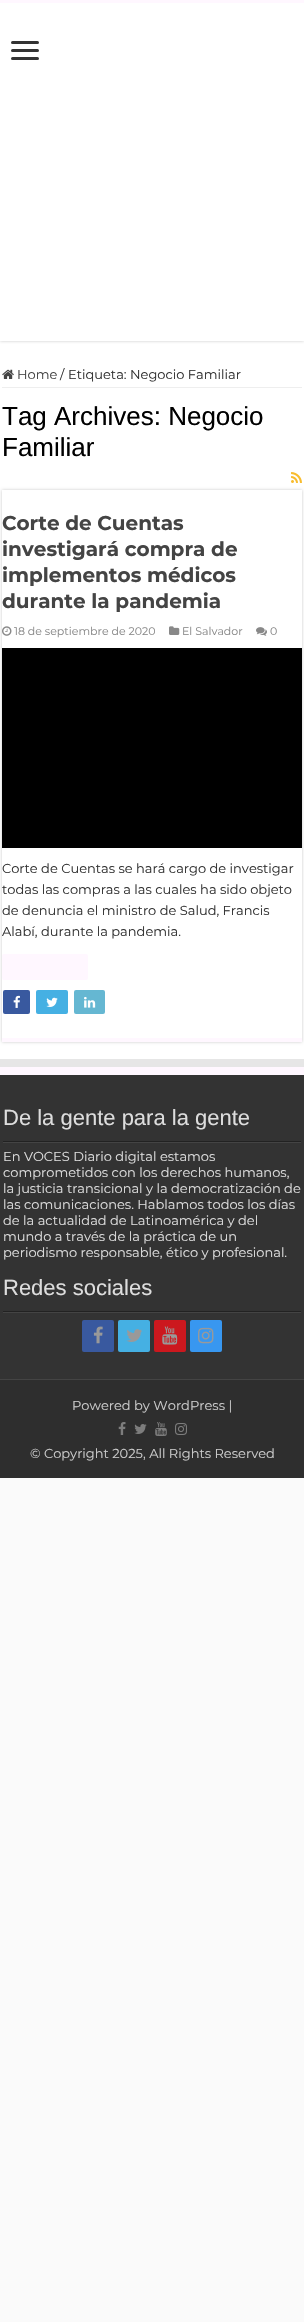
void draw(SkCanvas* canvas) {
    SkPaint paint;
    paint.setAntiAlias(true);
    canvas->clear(0xFFFAFAFA);
    paint.setColor(0xFFFFFFFF);
    canvas->drawRect(SkRect::MakeXYWH(0, 3, 304, 1056), paint);
    canvas->save();
    canvas->clipRect(SkRect::MakeXYWH(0, 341, 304, 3));
    paint.setColor(0xFFCACACA);
    paint.setMaskFilter(SkMaskFilter::MakeBlur(kNormal_SkBlurStyle, 1.5f));
    canvas->drawRect(SkRect::MakeXYWH(0, 0, 304, 341), paint);
    paint.setMaskFilter(nullptr);
    canvas->restore();
    paint.setColor(0xFFFFF7FF);
    canvas->drawRect(SkRect::MakeXYWH(0, 0, 304, 3), paint);
    paint.setColor(0xFF333333);
    canvas->drawRoundRect(SkRect::MakeXYWH(11, 41, 28, 3), 1.5f, 1.5f, paint);
    canvas->drawRoundRect(SkRect::MakeXYWH(11, 49, 28, 3), 1.5f, 1.5f, paint);
    canvas->drawRoundRect(SkRect::MakeXYWH(11, 57, 28, 3), 1.5f, 1.5f, paint);
    paint.setColor(0xFFEEEEEE);
    canvas->drawRect(SkRect::MakeXYWH(2, 387, 300, 1), paint);
    canvas->drawImageRect(SkImages::DeferredFromEncodedData(SkData::MakeFromFileName("img1.png")), SkRect::MakeXYWH(2, 369, 12, 10), SkSamplingOptions());
    SkFont font1(fontMgr->matchFamilyStyle("Montserrat", SkFontStyle::Normal()), 13);
    font1.setSubpixel(true);
    paint.setColor(0xFF444444);
    canvas->drawString("Home", 17, 379, font1, paint);
    paint.setColor(0xFF333333);
    canvas->drawString("/", 60, 379, font1, paint);
    canvas->drawString("Etiqueta: Negocio Familiar", 68, 379, font1, paint);
    SkFont font2(fontMgr->matchFamilyStyle("Liberation Sans", SkFontStyle::Normal()), 26);
    font2.setSubpixel(true);
    paint.setColor(0xFF000000);
    canvas->drawString("Tag Archives: Negocio", 2, 425, font2, paint);
    canvas->drawString("Familiar", 2, 456, font2, paint);
    canvas->drawImageRect(SkImages::DeferredFromEncodedData(SkData::MakeFromFileName("img2.png")), SkRect::MakeXYWH(291, 472, 11, 11), SkSamplingOptions());
    canvas->save();
    canvas->clipPath(SkPathBuilder(SkPathFillType::kEvenOdd).moveTo(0, 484).lineTo(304, 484).lineTo(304, 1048).lineTo(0, 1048).close().moveTo(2, 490).lineTo(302, 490).lineTo(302, 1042).lineTo(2, 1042).close().detach(), true);
    paint.setColor(0xFFCACACA);
    paint.setMaskFilter(SkMaskFilter::MakeBlur(kNormal_SkBlurStyle, 1.5f));
    canvas->drawRect(SkRect::MakeXYWH(2, 490, 300, 552), paint);
    paint.setMaskFilter(nullptr);
    canvas->restore();
    paint.setColor(0xFFFFF7FF);
    canvas->drawRect(SkRect::MakeXYWH(2, 1038, 300, 4), paint);
    SkFont font3(fontMgr->matchFamilyStyle("Montserrat", SkFontStyle::Bold()), 20);
    font3.setSubpixel(true);
    paint.setColor(0xFF444444);
    canvas->drawString("Corte de Cuentas", 2, 530, font3, paint);
    canvas->drawString("investigará compra de", 2, 556, font3, paint);
    canvas->drawString("implementos médicos", 2, 582, font3, paint);
    canvas->drawString("durante la pandemia", 2, 608, font3, paint);
    canvas->drawImageRect(SkImages::DeferredFromEncodedData(SkData::MakeFromFileName("img3.png")), SkRect::MakeXYWH(2, 626, 10, 10), SkSamplingOptions());
    SkFont font4(fontMgr->matchFamilyStyle("Montserrat", SkFontStyle::Normal()), 11);
    font4.setSubpixel(true);
    paint.setColor(0xFF888888);
    canvas->drawString("18 de septiembre de 2020", 14, 635, font4, paint);
    canvas->drawImageRect(SkImages::DeferredFromEncodedData(SkData::MakeFromFileName("img4.png")), SkRect::MakeXYWH(169, 626, 11, 9), SkSamplingOptions());
    canvas->drawString("El Salvador", 182, 635, font4, paint);
    canvas->drawImageRect(SkImages::DeferredFromEncodedData(SkData::MakeFromFileName("img5.png")), SkRect::MakeXYWH(256, 627, 11, 9), SkSamplingOptions());
    canvas->drawString("0", 270, 635, font4, paint);
    paint.setColor(0xFF000000);
    canvas->drawRect(SkRect::MakeXYWH(2, 648, 300, 200), paint);
    paint.setColor(0xFF333333);
    canvas->drawString("Corte de Cuentas se hará cargo de investigar", 2, 873, font1, paint);
    canvas->drawString("todas las compras a las cuales ha sido objeto", 2, 894, font1, paint);
    canvas->drawString("de denuncia el ministro de Salud, Francis", 2, 915, font1, paint);
    canvas->drawString("Alabí, durante la pandemia.", 2, 936, font1, paint);
    paint.setColor(0xFFFFF7FF);
    canvas->drawRoundRect(SkRect::MakeXYWH(2, 954, 86, 26), 2, 2, paint);
    paint.setColor(0xFF39599F);
    canvas->drawRoundRect(SkRect::MakeXYWH(3, 990, 27, 24), 2, 2, paint);
    canvas->drawImageRect(SkImages::DeferredFromEncodedData(SkData::MakeFromFileName("img6.png")), SkRect::MakeXYWH(13, 995, 7, 13), SkSamplingOptions());
    paint.setColor(0xFF45B0E3);
    canvas->drawRoundRect(SkRect::MakeXYWH(36, 990, 32, 24), 2, 2, paint);
    canvas->drawImageRect(SkImages::DeferredFromEncodedData(SkData::MakeFromFileName("img7.png")), SkRect::MakeXYWH(46, 997, 12, 10), SkSamplingOptions());
    paint.setColor(0xFF65B7D2);
    canvas->drawRoundRect(SkRect::MakeXYWH(74, 990, 31, 24), 2, 2, paint);
    canvas->drawImageRect(SkImages::DeferredFromEncodedData(SkData::MakeFromFileName("img8.png")), SkRect::MakeXYWH(84, 996, 12, 12), SkSamplingOptions());
    paint.setColor(0xFFE6E6E6);
    canvas->drawRect(SkRect::MakeXYWH(0, 1059, 304, 8), paint);
    paint.setColor(0xFF333333);
    canvas->drawRect(SkRect::MakeXYWH(0, 1075, 304, 304), paint);
    paint.setColor(0xFFFFF7FF);
    canvas->drawRect(SkRect::MakeXYWH(0, 1067, 304, 8), paint);
    paint.setColor(0xFF222222);
    canvas->drawRect(SkRect::MakeXYWH(3, 1141, 298, 1), paint);
    SkFont font5(fontMgr->matchFamilyStyle("Liberation Sans", SkFontStyle::Normal()), 22);
    font5.setSubpixel(true);
    paint.setColor(0xFFDDDDDD);
    canvas->drawString("De la gente para la gente", 3, 1125, font5, paint);
    paint.setColor(0xFF444444);
    canvas->drawRect(SkRect::MakeXYWH(3, 1142, 298, 1), paint);
    paint.setColor(0xFFDDDDDD);
    canvas->drawString("En VOCES Diario digital estamos", 3, 1161, font1, paint);
    canvas->drawString("comprometidos con los derechos humanos,", 3, 1177, font1, paint);
    canvas->drawString("la justicia transicional y la democratización de", 3, 1193, font1, paint);
    canvas->drawString("las comunicaciones. Hablamos todos los días", 3, 1209, font1, paint);
    canvas->drawString("de la actualidad de Latinoamérica y del", 3, 1225, font1, paint);
    canvas->drawString("mundo a través de la práctica de un", 3, 1241, font1, paint);
    canvas->drawString("periodismo responsable, ético y profesional.", 3, 1257, font1, paint);
    paint.setColor(0xFF222222);
    canvas->drawRect(SkRect::MakeXYWH(3, 1311, 298, 1), paint);
    paint.setColor(0xFFDDDDDD);
    canvas->drawString("Redes sociales", 3, 1295, font5, paint);
    paint.setColor(0xFF444444);
    canvas->drawRect(SkRect::MakeXYWH(3, 1312, 298, 1), paint);
    paint.setColor(0xFF39599F);
    canvas->drawRoundRect(SkRect::MakeXYWH(82, 1320, 32, 32), 2, 2, paint);
    canvas->drawImageRect(SkImages::DeferredFromEncodedData(SkData::MakeFromFileName("img9.png")), SkRect::MakeXYWH(93, 1326, 10, 18), SkSamplingOptions());
    paint.setColor(0xFF45B0E3);
    canvas->drawRoundRect(SkRect::MakeXYWH(118, 1320, 32, 32), 2, 2, paint);
    canvas->drawImageRect(SkImages::DeferredFromEncodedData(SkData::MakeFromFileName("img10.png")), SkRect::MakeXYWH(126, 1329, 16, 13), SkSamplingOptions());
    paint.setColor(0xFFCC181E);
    canvas->drawRoundRect(SkRect::MakeXYWH(154, 1320, 32, 32), 2, 2, paint);
    canvas->drawImageRect(SkImages::DeferredFromEncodedData(SkData::MakeFromFileName("img11.png")), SkRect::MakeXYWH(162, 1326, 16, 19), SkSamplingOptions());
    paint.setColor(0xFF3897F0);
    canvas->drawRoundRect(SkRect::MakeXYWH(190, 1320, 32, 32), 2, 2, paint);
    canvas->drawImageRect(SkImages::DeferredFromEncodedData(SkData::MakeFromFileName("img12.png")), SkRect::MakeXYWH(198, 1327, 16, 17), SkSamplingOptions());
    paint.setColor(0xFF2E2E2E);
    canvas->drawRect(SkRect::MakeXYWH(0, 1380, 304, 98), paint);
    paint.setColor(0xFF444444);
    canvas->drawRect(SkRect::MakeXYWH(0, 1379, 304, 1), paint);
    paint.setColor(0xFFCCCCCC);
    canvas->drawString("Powered by WordPress |", 72, 1410, font1, paint);
    canvas->drawImageRect(SkImages::DeferredFromEncodedData(SkData::MakeFromFileName("img13.png")), SkRect::MakeXYWH(118, 1422, 8, 13), SkSamplingOptions());
    canvas->drawImageRect(SkImages::DeferredFromEncodedData(SkData::MakeFromFileName("img14.png")), SkRect::MakeXYWH(134, 1424, 13, 10), SkSamplingOptions());
    canvas->drawImageRect(SkImages::DeferredFromEncodedData(SkData::MakeFromFileName("img15.png")), SkRect::MakeXYWH(155, 1422, 12, 14), SkSamplingOptions());
    canvas->drawImageRect(SkImages::DeferredFromEncodedData(SkData::MakeFromFileName("img16.png")), SkRect::MakeXYWH(175, 1423, 12, 12), SkSamplingOptions());
    canvas->drawString("© Copyright 2025, All Rights Reserved", 30, 1458, font1, paint);
}
